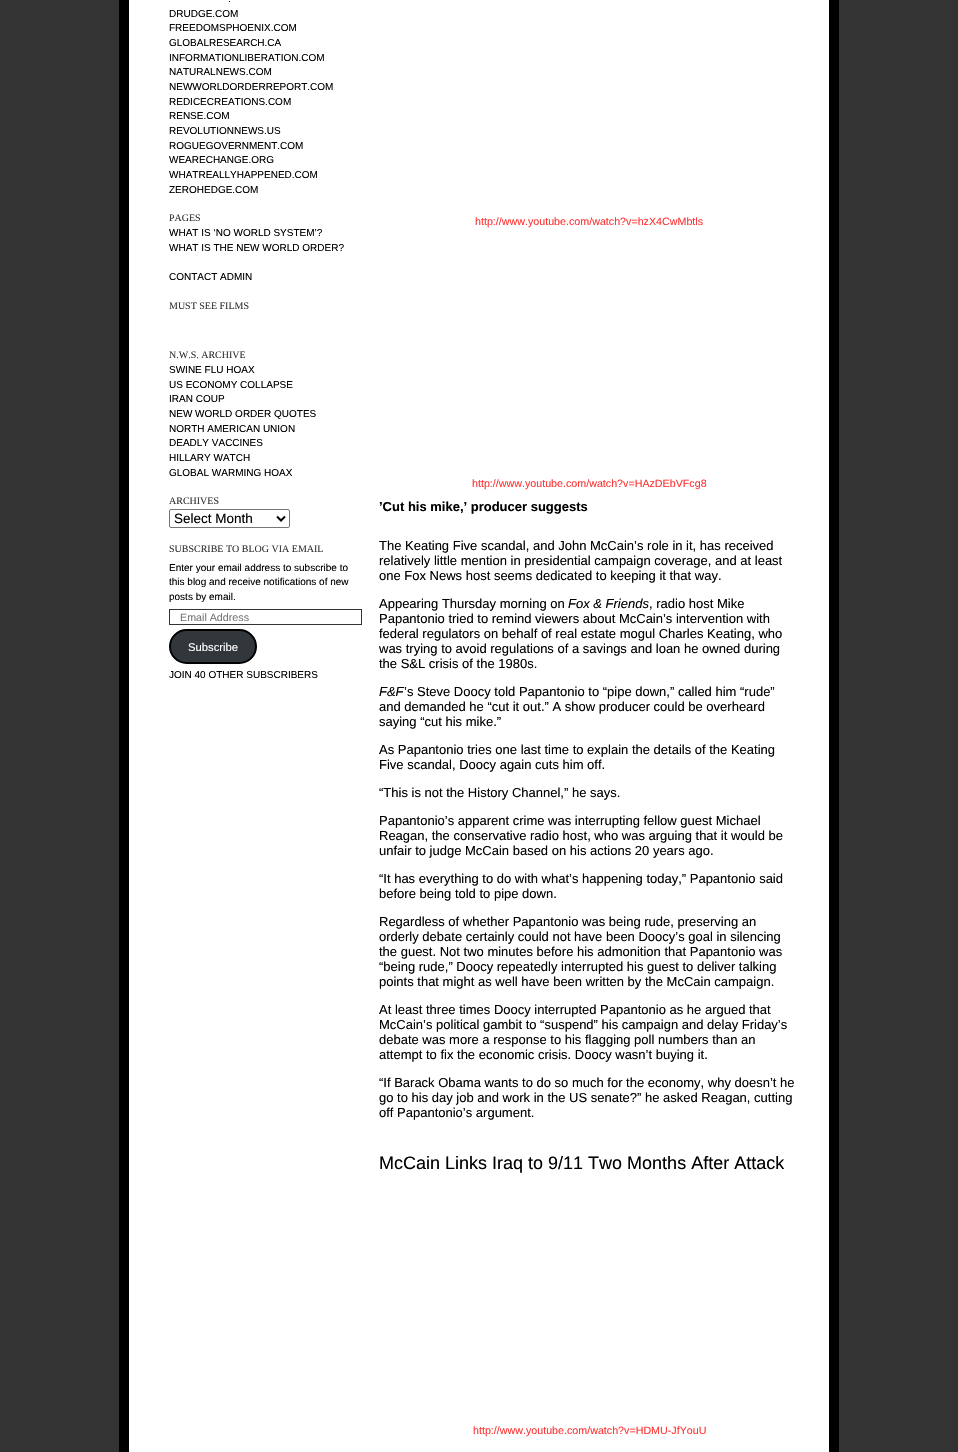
void draw(SkCanvas* canvas) {
    SkPaint paint;
    paint.setAntiAlias(true);
    canvas->clear(0xFF333333);
    paint.setColor(0xFF000000);
    canvas->drawRect(SkRect::MakeXYWH(119, 0, 720, 1452), paint);
    paint.setColor(0xFFFFFFFF);
    canvas->drawRect(SkRect::MakeXYWH(129, 0, 700, 1452), paint);
    SkFont font1(fontMgr->matchFamilyStyle("Liberation Sans", SkFontStyle::Normal()), 10);
    font1.setSubpixel(true);
    paint.setColor(0xFF000000);
    canvas->drawString(".", 228, 2, font1, paint);
    canvas->drawString("DRUDGE.COM", 169, 17, font1, paint);
    canvas->drawString("FREEDOMSPHOENIX.COM", 169, 31, font1, paint);
    canvas->drawString("GLOBALRESEARCH.CA", 169, 46, font1, paint);
    canvas->drawString("INFORMATIONLIBERATION.COM", 169, 61, font1, paint);
    canvas->drawString("NATURALNEWS.COM", 169, 75, font1, paint);
    canvas->drawString("NEWWORLDORDERREPORT.COM", 169, 90, font1, paint);
    canvas->drawString("REDICECREATIONS.COM", 169, 105, font1, paint);
    canvas->drawString("RENSE.COM", 169, 119, font1, paint);
    canvas->drawString("REVOLUTIONNEWS.US", 169, 134, font1, paint);
    canvas->drawString("ROGUEGOVERNMENT.COM", 169, 149, font1, paint);
    canvas->drawString("WEARECHANGE.ORG", 169, 163, font1, paint);
    canvas->drawString("WHATREALLYHAPPENED.COM", 169, 178, font1, paint);
    canvas->drawString("ZEROHEDGE.COM", 169, 193, font1, paint);
    SkFont font2(fontMgr->matchFamilyStyle("Liberation Serif", SkFontStyle::Normal()), 10);
    font2.setSubpixel(true);
    paint.setColor(0xFF333333);
    canvas->drawString("PAGES", 169, 221, font2, paint);
    paint.setColor(0xFF000000);
    canvas->drawString("WHAT IS ‘NO WORLD SYSTEM’?", 169, 236, font1, paint);
    canvas->drawString("WHAT IS THE NEW WORLD ORDER?", 169, 251, font1, paint);
    canvas->drawString("CONTACT ADMIN", 169, 280, font1, paint);
    paint.setColor(0xFF333333);
    canvas->drawString("MUST SEE FILMS", 169, 309, font2, paint);
    canvas->drawString("N.W.S. ARCHIVE", 169, 358, font2, paint);
    paint.setColor(0xFF000000);
    canvas->drawString("SWINE FLU HOAX", 169, 373, font1, paint);
    canvas->drawString("US ECONOMY COLLAPSE", 169, 388, font1, paint);
    canvas->drawString("IRAN COUP", 169, 402, font1, paint);
    canvas->drawString("NEW WORLD ORDER QUOTES", 169, 417, font1, paint);
    canvas->drawString("NORTH AMERICAN UNION", 169, 432, font1, paint);
    canvas->drawString("DEADLY VACCINES", 169, 446, font1, paint);
    canvas->drawString("HILLARY WATCH", 169, 461, font1, paint);
    canvas->drawString("GLOBAL WARMING HOAX", 169, 476, font1, paint);
    paint.setColor(0xFF333333);
    canvas->drawString("ARCHIVES", 169, 504, font2, paint);
    paint.setStyle(SkPaint::kStroke_Style);
    paint.setStrokeWidth(1);
    paint.setColor(0xFF767676);
    canvas->drawRoundRect(SkRect::MakeXYWH(169.5f, 509.5f, 120, 18), 1.5f, 1.5f, paint);
    paint.setStrokeWidth(2);
    paint.setColor(0xFF000000);
    canvas->drawPath(SkPathBuilder().moveTo(277, 516.5f).lineTo(281, 520.5f).lineTo(285, 516.5f).detach(), paint);
    SkFont font3(fontMgr->matchFamilyStyle("Liberation Sans", SkFontStyle::Normal()), 13.5f);
    font3.setSubpixel(true);
    paint.setStyle(SkPaint::kFill_Style);
    canvas->drawString("Select Month", 174, 523, font3, paint);
    paint.setColor(0xFF333333);
    canvas->drawString("SUBSCRIBE TO BLOG VIA EMAIL", 169, 552, font2, paint);
    paint.setColor(0xFF000000);
    canvas->drawString("Enter your email address to subscribe to", 169, 571, font1, paint);
    canvas->drawString("this blog and receive notifications of new", 169, 585, font1, paint);
    canvas->drawString("posts by email.", 169, 600, font1, paint);
    paint.setStyle(SkPaint::kStroke_Style);
    paint.setStrokeWidth(1);
    paint.setColor(0xFF333333);
    canvas->drawRect(SkRect::MakeXYWH(169.5f, 609.5f, 192, 15), paint);
    SkFont font4(fontMgr->matchFamilyStyle("Liberation Sans", SkFontStyle::Normal()), 10.7f);
    font4.setSubpixel(true);
    paint.setStyle(SkPaint::kFill_Style);
    paint.setColor(0xFF757575);
    canvas->drawString("Email Address", 180, 621, font4, paint);
    paint.setColor(0xFF32373C);
    canvas->drawRoundRect(SkRect::MakeXYWH(170, 630, 86, 33), 16.5f, 16.5f, paint);
    paint.setStyle(SkPaint::kStroke_Style);
    paint.setStrokeWidth(2);
    paint.setColor(0xFF000000);
    canvas->drawRoundRect(SkRect::MakeXYWH(170, 630, 86, 33), 16.5f, 16.5f, paint);
    SkFont font5(fontMgr->matchFamilyStyle("Liberation Sans", SkFontStyle::Normal()), 11.25f);
    font5.setSubpixel(true);
    paint.setStyle(SkPaint::kFill_Style);
    paint.setColor(0xFFFFFFFF);
    canvas->drawString("Subscribe", 188, 651, font5, paint);
    paint.setColor(0xFF000000);
    canvas->drawString("JOIN 40 OTHER SUBSCRIBERS", 169, 678, font1, paint);
    paint.setColor(0xFFFF3333);
    canvas->drawString("http://www.youtube.com/watch?v=hzX4CwMbtls", 475, 225, font4, paint);
    canvas->drawString("http://www.youtube.com/watch?v=HAzDEbVFcg8", 472, 487, font4, paint);
    SkFont font6(fontMgr->matchFamilyStyle("Liberation Sans", SkFontStyle::Bold()), 13);
    font6.setSubpixel(true);
    paint.setColor(0xFF000000);
    canvas->drawString("’Cut his mike,’ producer suggests", 379, 511, font6, paint);
    SkFont font7(fontMgr->matchFamilyStyle("Liberation Sans", SkFontStyle::Normal()), 13);
    font7.setSubpixel(true);
    canvas->drawString("The Keating Five scandal, and John McCain’s role in it, has received", 379, 550, font7, paint);
    canvas->drawString("relatively little mention in presidential campaign coverage, and at least", 379, 565, font7, paint);
    canvas->drawString("one Fox News host seems dedicated to keeping it that way.", 379, 580, font7, paint);
    canvas->drawString("Appearing Thursday morning on", 379, 608, font7, paint);
    SkFont font8(fontMgr->matchFamilyStyle("Liberation Sans", SkFontStyle::Italic()), 13);
    font8.setSubpixel(true);
    canvas->drawString("Fox & Friends", 568, 608, font8, paint);
    canvas->drawString(", radio host Mike", 649, 608, font7, paint);
    canvas->drawString("Papantonio tried to remind viewers about McCain’s intervention with", 379, 623, font7, paint);
    canvas->drawString("federal regulators on behalf of real estate mogul Charles Keating, who", 379, 638, font7, paint);
    canvas->drawString("was trying to avoid regulations of a savings and loan he owned during", 379, 653, font7, paint);
    canvas->drawString("the S&L crisis of the 1980s.", 379, 668, font7, paint);
    canvas->drawString("F&F", 379, 696, font8, paint);
    canvas->drawString("’s Steve Doocy told Papantonio to “pipe down,” called him “rude”", 404, 696, font7, paint);
    canvas->drawString("and demanded he “cut it out.” A show producer could be overheard", 379, 711, font7, paint);
    canvas->drawString("saying “cut his mike.”", 379, 726, font7, paint);
    canvas->drawString("As Papantonio tries one last time to explain the details of the Keating", 379, 754, font7, paint);
    canvas->drawString("Five scandal, Doocy again cuts him off.", 379, 769, font7, paint);
    canvas->drawString("“This is not the History Channel,” he says.", 379, 797, font7, paint);
    canvas->drawString("Papantonio’s apparent crime was interrupting fellow guest Michael", 379, 825, font7, paint);
    canvas->drawString("Reagan, the conservative radio host, who was arguing that it would be", 379, 840, font7, paint);
    canvas->drawString("unfair to judge McCain based on his actions 20 years ago.", 379, 855, font7, paint);
    canvas->drawString("“It has everything to do with what’s happening today,” Papantonio said", 379, 883, font7, paint);
    canvas->drawString("before being told to pipe down.", 379, 898, font7, paint);
    canvas->drawString("Regardless of whether Papantonio was being rude, preserving an", 379, 926, font7, paint);
    canvas->drawString("orderly debate certainly could not have been Doocy’s goal in silencing", 379, 941, font7, paint);
    canvas->drawString("the guest. Not two minutes before his admonition that Papantonio was", 379, 956, font7, paint);
    canvas->drawString("“being rude,” Doocy repeatedly interrupted his guest to deliver talking", 379, 971, font7, paint);
    canvas->drawString("points that might as well have been written by the McCain campaign.", 379, 986, font7, paint);
    canvas->drawString("At least three times Doocy interrupted Papantonio as he argued that", 379, 1014, font7, paint);
    canvas->drawString("McCain’s political gambit to “suspend” his campaign and delay Friday’s", 379, 1029, font7, paint);
    canvas->drawString("debate was more a response to his flagging poll numbers than an", 379, 1044, font7, paint);
    canvas->drawString("attempt to fix the economic crisis. Doocy wasn’t buying it.", 379, 1059, font7, paint);
    canvas->drawString("“If Barack Obama wants to do so much for the economy, why doesn’t he", 379, 1087, font7, paint);
    canvas->drawString("go to his day job and work in the US senate?” he asked Reagan, cutting", 379, 1102, font7, paint);
    canvas->drawString("off Papantonio’s argument.", 379, 1117, font7, paint);
    SkFont font9(fontMgr->matchFamilyStyle("Liberation Sans", SkFontStyle::Normal()), 18);
    font9.setSubpixel(true);
    canvas->drawString("McCain Links Iraq to 9/11 Two Months After Attack", 379, 1169, font9, paint);
    paint.setColor(0xFFFF3333);
    canvas->drawString("http://www.youtube.com/watch?v=HDMU-JfYouU", 473, 1434, font4, paint);
}
